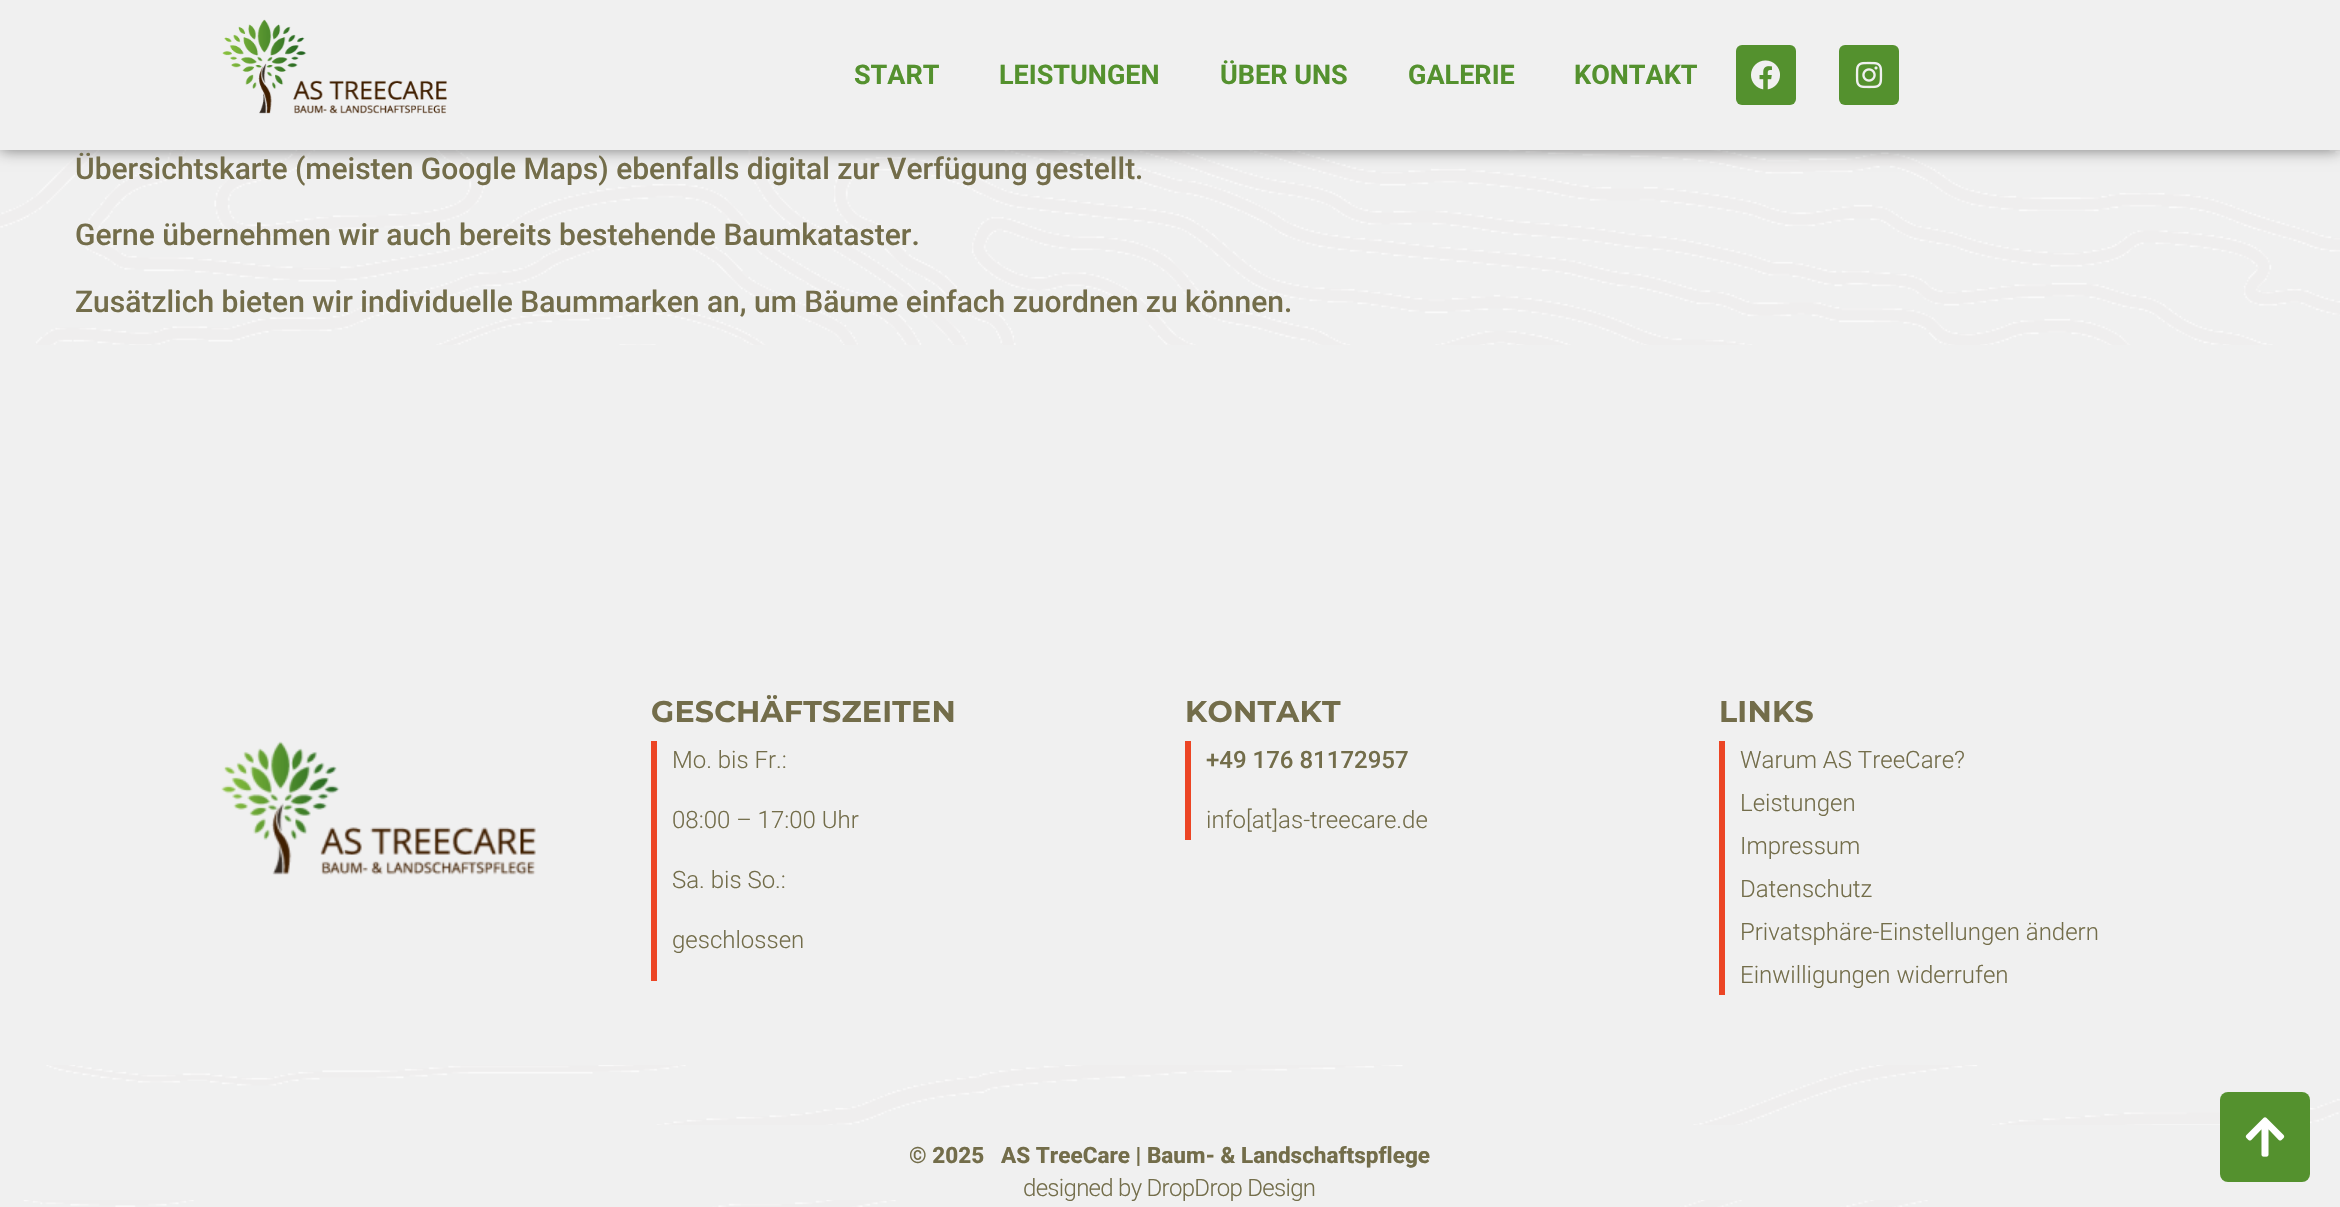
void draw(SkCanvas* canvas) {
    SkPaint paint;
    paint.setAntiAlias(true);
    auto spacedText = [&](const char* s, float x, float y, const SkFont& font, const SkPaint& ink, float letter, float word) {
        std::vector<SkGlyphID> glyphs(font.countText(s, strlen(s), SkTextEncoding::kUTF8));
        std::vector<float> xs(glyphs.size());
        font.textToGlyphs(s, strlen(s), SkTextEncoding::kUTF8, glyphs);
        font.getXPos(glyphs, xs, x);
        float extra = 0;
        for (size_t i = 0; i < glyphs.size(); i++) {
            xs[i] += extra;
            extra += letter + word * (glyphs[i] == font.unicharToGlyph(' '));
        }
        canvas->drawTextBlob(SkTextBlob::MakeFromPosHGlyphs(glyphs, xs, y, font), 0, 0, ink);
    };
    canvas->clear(0xFFF0F0F0);
    canvas->drawImageRect(SkImages::DeferredFromEncodedData(SkData::MakeFromFileName("img1.png")), SkRect::MakeXYWH(0, 150, 2340, 1057), SkSamplingOptions());
    paint.setColor(0x80000000);
    paint.setMaskFilter(SkMaskFilter::MakeBlur(kNormal_SkBlurStyle, 7.5f));
    canvas->drawRect(SkRect::MakeXYWH(0, 0, 2340, 150), paint);
    paint.setMaskFilter(nullptr);
    paint.setColor(0xFFF0F0F0);
    canvas->drawRect(SkRect::MakeXYWH(0, 0, 2340, 150), paint);
    canvas->drawImageRect(SkImages::DeferredFromEncodedData(SkData::MakeFromFileName("img2.png")), SkRect::MakeXYWH(222, 19, 225, 95), SkSamplingOptions());
    SkFont font1(fontMgr->matchFamilyStyle("Roboto", SkFontStyle::Bold()), 27);
    font1.setSubpixel(true);
    paint.setColor(0xFF54912E);
    canvas->drawString("START", 854, 84, font1, paint);
    canvas->drawString("LEISTUNGEN", 999, 84, font1, paint);
    canvas->drawString("ÜBER UNS", 1220, 84, font1, paint);
    canvas->drawString("GALERIE", 1408, 84, font1, paint);
    canvas->drawString("KONTAKT", 1574, 84, font1, paint);
    canvas->drawRoundRect(SkRect::MakeXYWH(1736, 45, 60, 60), 6, 6, paint);
    canvas->drawImageRect(SkImages::DeferredFromEncodedData(SkData::MakeFromFileName("img3.png")), SkRect::MakeXYWH(1751, 60, 29, 30), SkSamplingOptions());
    canvas->drawRoundRect(SkRect::MakeXYWH(1839, 45, 60, 60), 6, 6, paint);
    canvas->drawImageRect(SkImages::DeferredFromEncodedData(SkData::MakeFromFileName("img4.png")), SkRect::MakeXYWH(1855, 61, 28, 28), SkSamplingOptions());
    SkFont font2(fontMgr->matchFamilyStyle("Roboto", SkFontStyle(500, SkFontStyle::kNormal_Width, SkFontStyle::kUpright_Slant)), 30);
    font2.setSubpixel(true);
    paint.setColor(0xFF736D4A);
    canvas->drawString("Übersichtskarte (meisten Google Maps) ebenfalls digital zur Verfügung gestellt.", 75, 179, font2, paint);
    canvas->drawString("Gerne übernehmen wir auch bereits bestehende Baumkataster.", 75, 245, font2, paint);
    canvas->drawString("Zusätzlich bieten wir individuelle Baummarken an, um Bäume einfach zuordnen zu können.", 75, 312, font2, paint);
    paint.setColor(0xFFF0F0F0);
    canvas->drawRect(SkRect::MakeXYWH(0, 345, 2340, 720), paint);
    canvas->drawImageRect(SkImages::DeferredFromEncodedData(SkData::MakeFromFileName("img5.png")), SkRect::MakeXYWH(221, 741, 315, 134), SkSamplingOptions());
    SkFont font3(fontMgr->matchFamilyStyle("Montserrat", SkFontStyle::Bold()), 30);
    font3.setSubpixel(true);
    paint.setColor(0xFF736D4A);
    spacedText("GESCHÄFTSZEITEN", 651, 722, font3, paint, 0.25f, 0);
    paint.setColor(0xFFEC4524);
    canvas->drawRect(SkRect::MakeXYWH(651, 741, 6, 240), paint);
    SkFont font4(fontMgr->matchFamilyStyle("Roboto", SkFontStyle(300, SkFontStyle::kNormal_Width, SkFontStyle::kUpright_Slant)), 24);
    font4.setSubpixel(true);
    paint.setColor(0xFF736D4A);
    canvas->drawString("Mo. bis Fr.:", 672, 768, font4, paint);
    canvas->drawString("08:00 – 17:00 Uhr", 672, 828, font4, paint);
    canvas->drawString("Sa. bis So.:", 672, 888, font4, paint);
    canvas->drawString("geschlossen", 672, 948, font4, paint);
    spacedText("KONTAKT", 1185, 722, font3, paint, 0.25f, 0);
    paint.setColor(0xFFEC4524);
    canvas->drawRect(SkRect::MakeXYWH(1185, 741, 6, 99), paint);
    SkFont font5(fontMgr->matchFamilyStyle("Roboto", SkFontStyle(500, SkFontStyle::kNormal_Width, SkFontStyle::kUpright_Slant)), 24);
    font5.setSubpixel(true);
    paint.setColor(0xFF736D4A);
    canvas->drawString("+49 176 81172957", 1206, 768, font5, paint);
    canvas->drawString("info[at]as-treecare.de", 1206, 828, font4, paint);
    spacedText("LINKS", 1719, 722, font3, paint, 0.25f, 0);
    paint.setColor(0xFFEC4524);
    canvas->drawRect(SkRect::MakeXYWH(1719, 741, 6, 254), paint);
    paint.setColor(0xFF736D4A);
    canvas->drawString("Warum AS TreeCare?", 1740, 768, font4, paint);
    canvas->drawString("Leistungen", 1740, 811, font4, paint);
    canvas->drawString("Impressum", 1740, 854, font4, paint);
    canvas->drawString("Datenschutz", 1740, 897, font4, paint);
    canvas->drawString("Privatsphäre-Einstellungen ändern", 1740, 940, font4, paint);
    canvas->drawString("Einwilligungen widerrufen", 1740, 983, font4, paint);
    paint.setColor(0xFFF0F0F0);
    canvas->drawRect(SkRect::MakeXYWH(0, 1125, 2340, 75), paint);
    SkFont font6(fontMgr->matchFamilyStyle("Roboto", SkFontStyle(800, SkFontStyle::kNormal_Width, SkFontStyle::kUpright_Slant)), 22.5f);
    font6.setSubpixel(true);
    paint.setColor(0xFF736D4A);
    canvas->drawString("© 2025   AS TreeCare | Baum- & Landschaftspflege", 909, 1163, font6, paint);
    spacedText("designed by DropDrop Design", 1023, 1196, font4, paint, -0.7f, 0);
    paint.setColor(0xFF54912E);
    canvas->drawRoundRect(SkRect::MakeXYWH(2220, 1092, 90, 90), 8, 8, paint);
    canvas->drawImageRect(SkImages::DeferredFromEncodedData(SkData::MakeFromFileName("img6.png")), SkRect::MakeXYWH(2245, 1117, 40, 40), SkSamplingOptions());
}
